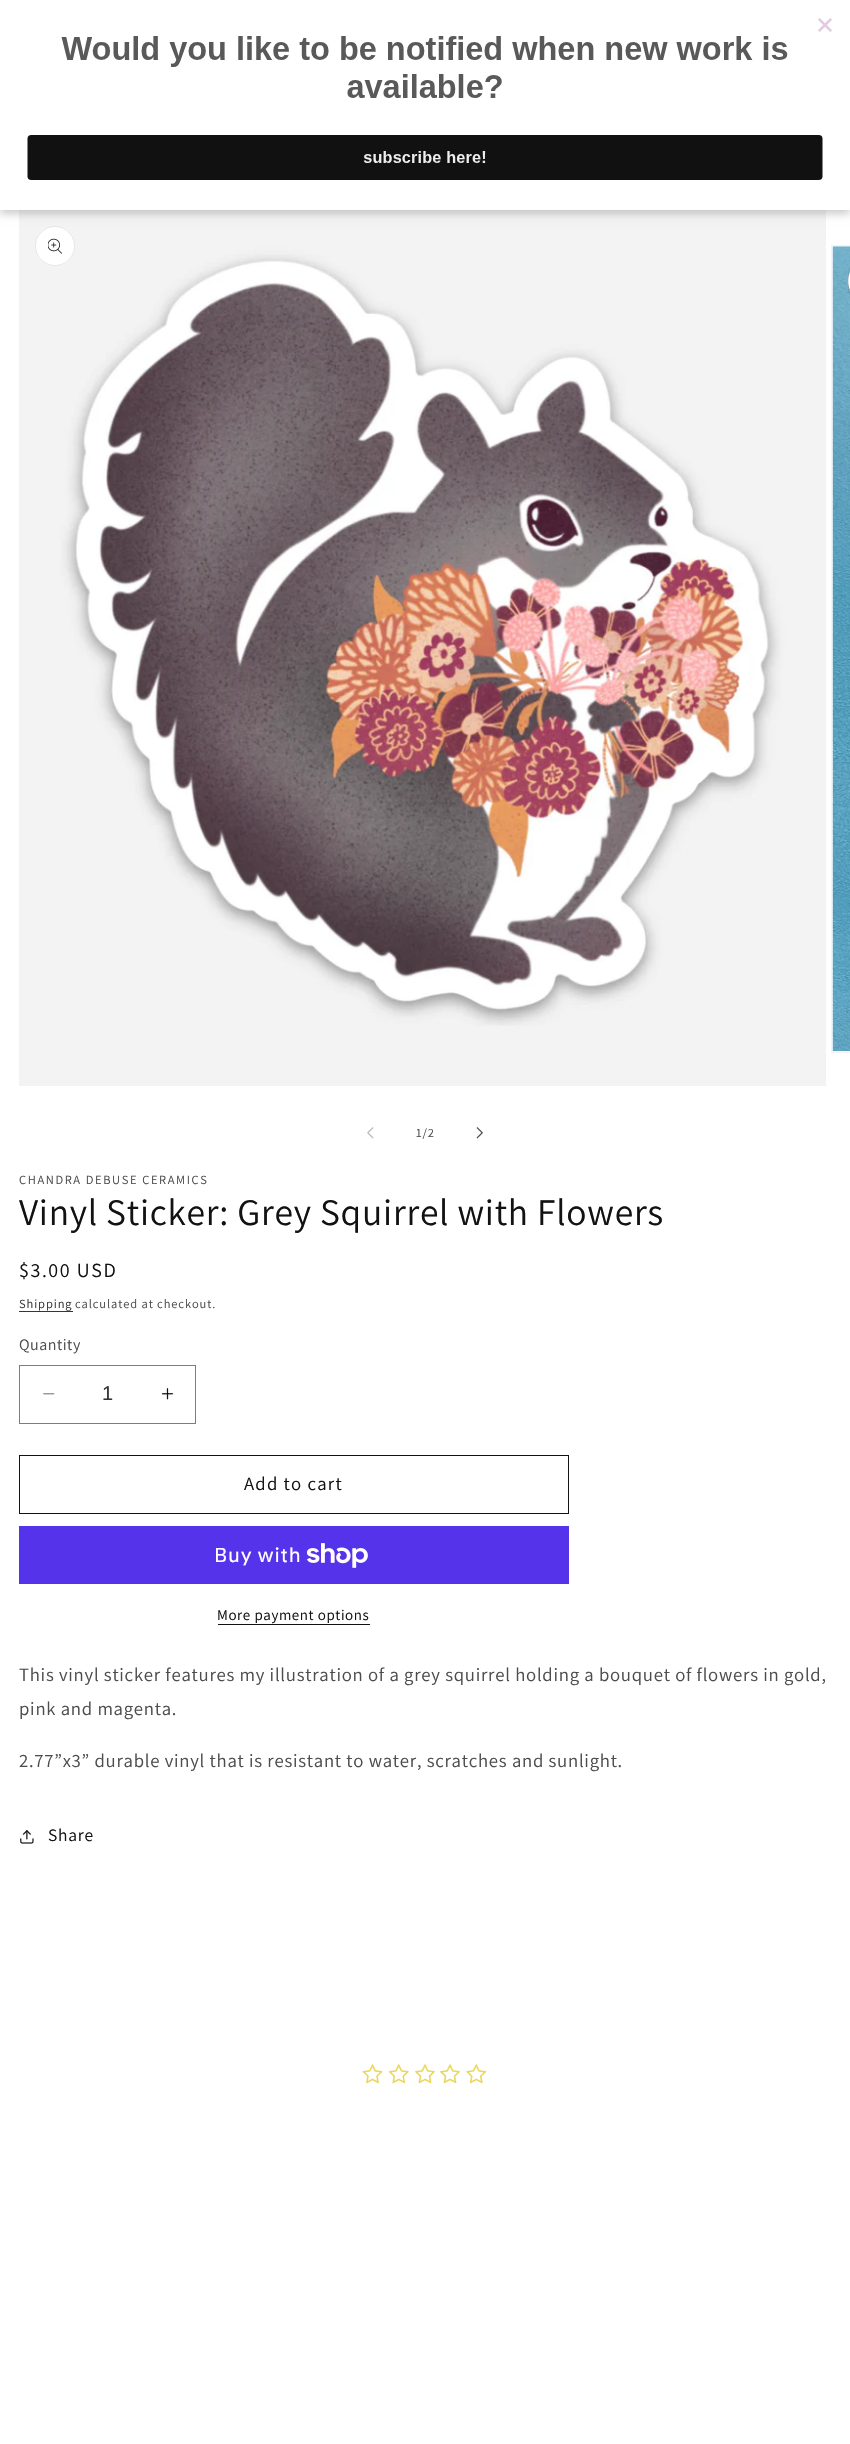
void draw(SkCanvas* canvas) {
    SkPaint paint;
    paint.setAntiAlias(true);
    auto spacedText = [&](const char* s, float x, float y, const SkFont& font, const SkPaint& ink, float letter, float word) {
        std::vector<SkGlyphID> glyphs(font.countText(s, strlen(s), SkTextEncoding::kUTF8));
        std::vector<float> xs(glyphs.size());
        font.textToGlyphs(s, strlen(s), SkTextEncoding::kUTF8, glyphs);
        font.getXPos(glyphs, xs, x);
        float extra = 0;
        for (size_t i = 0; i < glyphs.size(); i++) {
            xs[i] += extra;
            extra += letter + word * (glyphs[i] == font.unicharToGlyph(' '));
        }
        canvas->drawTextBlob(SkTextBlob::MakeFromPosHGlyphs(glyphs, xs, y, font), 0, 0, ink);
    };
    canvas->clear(0xFFFFFFFF);
    paint.setStyle(SkPaint::kStroke_Style);
    paint.setStrokeWidth(1);
    paint.setColor(0xFFF3F3F3);
    canvas->drawRect(SkRect::MakeXYWH(19.5f, 210.5f, 806, 875), paint);
    canvas->drawImageRect(SkImages::DeferredFromEncodedData(SkData::MakeFromFileName("img2.png")), SkRect::MakeXYWH(20, 211, 805, 874), SkSamplingOptions());
    paint.setStyle(SkPaint::kFill_Style);
    paint.setColor(0xFFFFFFFF);
    canvas->drawCircle(55, 246, 20, paint);
    paint.setStyle(SkPaint::kStroke_Style);
    paint.setColor(0x1A121212);
    canvas->drawCircle(55, 246, 19.5f, paint);
    paint.setStyle(SkPaint::kFill_Style);
    paint.setColor(0x33000000);
    paint.setMaskFilter(SkMaskFilter::MakeBlur(kNormal_SkBlurStyle, 4));
    canvas->drawRect(SkRect::MakeXYWH(0, 4, 850, 210), paint);
    paint.setMaskFilter(nullptr);
    paint.setColor(0xFFFFFFFF);
    canvas->drawRect(SkRect::MakeXYWH(0, 0, 850, 210), paint);
    canvas->drawImageRect(SkImages::DeferredFromEncodedData(SkData::MakeFromFileName("img1.png")), SkRect::MakeXYWH(27, 18, 805, 162), SkSamplingOptions());
    canvas->drawImageRect(SkImages::DeferredFromEncodedData(SkData::MakeFromFileName("img3.png")), SkRect::MakeXYWH(48, 238, 14, 16), SkSamplingOptions());
    paint.setStyle(SkPaint::kStroke_Style);
    paint.setColor(0xFFF3F3F3);
    canvas->drawRect(SkRect::MakeXYWH(831.5f, 245.5f, 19, 807), paint);
    canvas->drawImageRect(SkImages::DeferredFromEncodedData(SkData::MakeFromFileName("img4.png")), SkRect::MakeXYWH(832, 246, 18, 806), SkSamplingOptions());
    paint.setStyle(SkPaint::kFill_Style);
    paint.setColor(0xFFFFFFFF);
    canvas->drawPath(SkPathBuilder().moveTo(868, 261).lineTo(850, 261).lineTo(850, 301).lineTo(868, 301).cubicTo(857, 301, 848, 292, 848, 281).cubicTo(848, 270, 857, 261, 868, 261).close().detach(), paint);
    paint.setStyle(SkPaint::kStroke_Style);
    paint.setColor(0x1A121212);
    canvas->drawRoundRect(SkRect::MakeXYWH(848.5f, 261.5f, 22, 39), 19.5f, 19.5f, paint);
    canvas->drawImageRect(SkImages::DeferredFromEncodedData(SkData::MakeFromFileName("img5.png")), SkRect::MakeXYWH(367, 1127, 7, 12), SkSamplingOptions());
    SkFont font1(fontMgr->matchFamilyStyle("Assistant", SkFontStyle::Normal()), 12.5f);
    font1.setSubpixel(true);
    paint.setStyle(SkPaint::kFill_Style);
    paint.setColor(0xFF4D4D4D);
    spacedText("1/2", 416, 1137, font1, paint, 0.9f, 0);
    canvas->drawImageRect(SkImages::DeferredFromEncodedData(SkData::MakeFromFileName("img6.png")), SkRect::MakeXYWH(476, 1127, 7, 12), SkSamplingOptions());
    spacedText("CHANDRA DEBUSE CERAMICS", 19, 1184, font1, paint, 1.6f, 0);
    SkFont font2(fontMgr->matchFamilyStyle("Assistant", SkFontStyle::Normal()), 37.5f);
    font2.setSubpixel(true);
    paint.setColor(0xFF121212);
    spacedText("Vinyl Sticker: Grey Squirrel with Flowers", 19, 1225, font2, paint, 0.75f, 0);
    SkFont font3(fontMgr->matchFamilyStyle("Assistant", SkFontStyle::Normal()), 20);
    font3.setSubpixel(true);
    spacedText("$3.00 USD", 19, 1277, font3, paint, 1.6f, 0);
    paint.setColor(0xFF363636);
    spacedText("Shipping", 19, 1308, font1, paint, 0.9f, 0);
    canvas->drawRect(SkRect::MakeXYWH(19, 1311, 54, 1), paint);
    paint.setColor(0xFF4D4D4D);
    spacedText("calculated at checkout.", 75, 1308, font1, paint, 0.9f, 0);
    SkFont font4(fontMgr->matchFamilyStyle("Assistant", SkFontStyle::Normal()), 16);
    font4.setSubpixel(true);
    spacedText("Quantity", 19, 1350, font4, paint, 0.5f, 0);
    canvas->drawImageRect(SkImages::DeferredFromEncodedData(SkData::MakeFromFileName("img7.png")), SkRect::MakeXYWH(43, 1393, 12, 2), SkSamplingOptions());
    canvas->drawImageRect(SkImages::DeferredFromEncodedData(SkData::MakeFromFileName("img8.png")), SkRect::MakeXYWH(161, 1388, 13, 12), SkSamplingOptions());
    paint.setStyle(SkPaint::kStroke_Style);
    paint.setColor(0xFF7D7D7D);
    canvas->drawRect(SkRect::MakeXYWH(19.5f, 1365.5f, 176, 58), paint);
    SkFont font5(fontMgr->matchFamilyStyle("Liberation Sans", SkFontStyle::Normal()), 20);
    font5.setSubpixel(true);
    paint.setStyle(SkPaint::kFill_Style);
    paint.setColor(0xFF363636);
    canvas->drawString("1", 102, 1400, font5, paint);
    paint.setStyle(SkPaint::kStroke_Style);
    paint.setColor(0xFF121212);
    canvas->drawRect(SkRect::MakeXYWH(19.5f, 1455.5f, 549, 58), paint);
    SkFont font6(fontMgr->matchFamilyStyle("Assistant", SkFontStyle::Normal()), 18.75f);
    font6.setSubpixel(true);
    paint.setStyle(SkPaint::kFill_Style);
    spacedText("Add to cart", 244, 1490, font6, paint, 1.25f, 0);
    paint.setColor(0xFF5433EB);
    canvas->drawRect(SkRect::MakeXYWH(19, 1526, 550, 58), paint);
    SkFont font7(fontMgr->matchFamilyStyle("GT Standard", SkFontStyle::Normal()), 20);
    font7.setSubpixel(true);
    paint.setColor(0xFFFFFFFF);
    spacedText("Buy with", 214, 1562, font7, paint, 0.75f, 0);
    canvas->drawImageRect(SkImages::DeferredFromEncodedData(SkData::MakeFromFileName("img9.png")), SkRect::MakeXYWH(306, 1543, 62, 25), SkSamplingOptions());
    SkFont font8(fontMgr->matchFamilyStyle("Assistant", SkFontStyle::Normal()), 15);
    font8.setSubpixel(true);
    paint.setColor(0xFF121212);
    spacedText("More payment options", 217, 1620, font8, paint, 0.6f, 0);
    canvas->drawRect(SkRect::MakeXYWH(218, 1624, 152, 1), paint);
    paint.setColor(0xFF4D4D4D);
    spacedText("This vinyl sticker features my illustration of a grey squirrel holding a bouquet of flowers in gold,", 19, 1681, font6, paint, 0.75f, 0);
    spacedText("pink and magenta.", 19, 1715, font6, paint, 0.75f, 0);
    spacedText("2.77”x3” durable vinyl that is resistant to water, scratches and sunlight.", 19, 1767, font6, paint, 0.75f, 0);
    canvas->drawImageRect(SkImages::DeferredFromEncodedData(SkData::MakeFromFileName("img10.png")), SkRect::MakeXYWH(20, 1830, 14, 14), SkSamplingOptions());
    SkFont font9(fontMgr->matchFamilyStyle("Assistant", SkFontStyle::Normal()), 17.5f);
    font9.setSubpixel(true);
    paint.setColor(0xFF121212);
    spacedText("Share", 48, 1841, font9, paint, 0.75f, 0);
    canvas->drawImageRect(SkImages::DeferredFromEncodedData(SkData::MakeFromFileName("img11.png")), SkRect::MakeXYWH(362, 2064, 21, 20), SkSamplingOptions());
    canvas->drawImageRect(SkImages::DeferredFromEncodedData(SkData::MakeFromFileName("img12.png")), SkRect::MakeXYWH(388, 2064, 21, 20), SkSamplingOptions());
    canvas->drawImageRect(SkImages::DeferredFromEncodedData(SkData::MakeFromFileName("img13.png")), SkRect::MakeXYWH(415, 2064, 20, 20), SkSamplingOptions());
    canvas->drawImageRect(SkImages::DeferredFromEncodedData(SkData::MakeFromFileName("img13.png")), SkRect::MakeXYWH(440, 2064, 20, 20), SkSamplingOptions());
    canvas->drawImageRect(SkImages::DeferredFromEncodedData(SkData::MakeFromFileName("img14.png")), SkRect::MakeXYWH(466, 2064, 21, 20), SkSamplingOptions());
}
